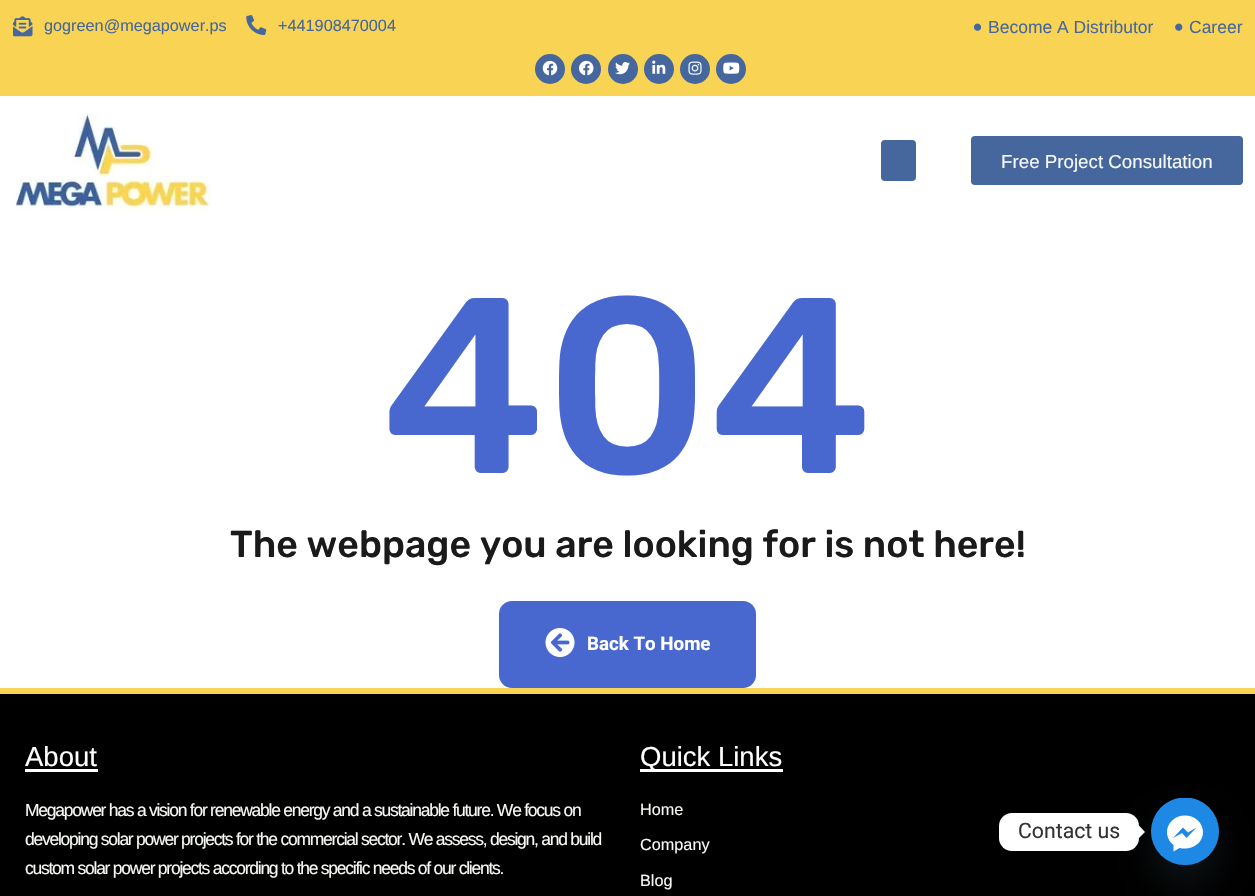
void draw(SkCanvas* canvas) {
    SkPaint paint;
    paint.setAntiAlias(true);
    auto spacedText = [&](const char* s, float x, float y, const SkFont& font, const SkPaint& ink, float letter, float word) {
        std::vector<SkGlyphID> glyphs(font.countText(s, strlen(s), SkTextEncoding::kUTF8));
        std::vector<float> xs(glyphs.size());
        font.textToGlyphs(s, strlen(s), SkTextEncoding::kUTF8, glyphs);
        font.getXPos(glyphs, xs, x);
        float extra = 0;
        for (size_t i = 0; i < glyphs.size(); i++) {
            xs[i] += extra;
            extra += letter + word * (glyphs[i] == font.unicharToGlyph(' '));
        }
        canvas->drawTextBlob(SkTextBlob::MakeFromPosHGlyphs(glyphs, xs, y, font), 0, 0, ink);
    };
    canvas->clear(0xFFFFFFFF);
    paint.setColor(0xFFF8D354);
    canvas->drawRect(SkRect::MakeXYWH(0, 0, 1255, 96), paint);
    canvas->drawImageRect(SkImages::DeferredFromEncodedData(SkData::MakeFromFileName("img1.png")), SkRect::MakeXYWH(13, 16, 20, 21), SkSamplingOptions());
    SkFont font1(fontMgr->matchFamilyStyle("Liberation Sans", SkFontStyle::Normal()), 16.25f);
    font1.setSubpixel(true);
    paint.setColor(0xFF45679E);
    canvas->drawString("gogreen@megapower.ps", 44, 31, font1, paint);
    canvas->drawImageRect(SkImages::DeferredFromEncodedData(SkData::MakeFromFileName("img2.png")), SkRect::MakeXYWH(246, 15, 21, 20), SkSamplingOptions());
    canvas->drawString("+441908470004", 278, 31, font1, paint);
    canvas->drawImageRect(SkImages::DeferredFromEncodedData(SkData::MakeFromFileName("img3.png")), SkRect::MakeXYWH(973, 23, 9, 8), SkSamplingOptions());
    SkFont font2(fontMgr->matchFamilyStyle("Liberation Sans", SkFontStyle::Normal()), 17.5f);
    font2.setSubpixel(true);
    canvas->drawString("Become A Distributor", 988, 33, font2, paint);
    canvas->drawImageRect(SkImages::DeferredFromEncodedData(SkData::MakeFromFileName("img4.png")), SkRect::MakeXYWH(1175, 23, 8, 8), SkSamplingOptions());
    canvas->drawString("Career", 1189, 33, font2, paint);
    canvas->drawCircle(550, 69, 15, paint);
    canvas->drawImageRect(SkImages::DeferredFromEncodedData(SkData::MakeFromFileName("img5.png")), SkRect::MakeXYWH(542, 60, 16, 16), SkSamplingOptions());
    canvas->drawCircle(586, 69, 15, paint);
    canvas->drawImageRect(SkImages::DeferredFromEncodedData(SkData::MakeFromFileName("img6.png")), SkRect::MakeXYWH(579, 60, 15, 16), SkSamplingOptions());
    canvas->drawCircle(623, 69, 15, paint);
    canvas->drawImageRect(SkImages::DeferredFromEncodedData(SkData::MakeFromFileName("img7.png")), SkRect::MakeXYWH(615, 62, 15, 13), SkSamplingOptions());
    canvas->drawCircle(659, 69, 15, paint);
    canvas->drawImageRect(SkImages::DeferredFromEncodedData(SkData::MakeFromFileName("img8.png")), SkRect::MakeXYWH(652, 60, 14, 14), SkSamplingOptions());
    canvas->drawCircle(695, 69, 15, paint);
    canvas->drawImageRect(SkImages::DeferredFromEncodedData(SkData::MakeFromFileName("img9.png")), SkRect::MakeXYWH(688, 61, 14, 14), SkSamplingOptions());
    canvas->drawCircle(731, 69, 15, paint);
    canvas->drawImageRect(SkImages::DeferredFromEncodedData(SkData::MakeFromFileName("img10.png")), SkRect::MakeXYWH(723, 62, 17, 12), SkSamplingOptions());
    canvas->drawImageRect(SkImages::DeferredFromEncodedData(SkData::MakeFromFileName("img11.png")), SkRect::MakeXYWH(12, 112, 199, 100), SkSamplingOptions());
    canvas->drawRoundRect(SkRect::MakeXYWH(881, 140, 35, 41), 4, 4, paint);
    canvas->drawRoundRect(SkRect::MakeXYWH(971, 136, 272, 49), 4, 4, paint);
    SkFont font3(fontMgr->matchFamilyStyle("Liberation Sans", SkFontStyle::Normal()), 18.75f);
    font3.setSubpixel(true);
    paint.setColor(0xFFF6F9F4);
    canvas->drawString("Free Project Consultation", 1001, 168, font3, paint);
    SkFont font4(fontMgr->matchFamilyStyle("Rubik", SkFontStyle(500, SkFontStyle::kNormal_Width, SkFontStyle::kUpright_Slant)), 250);
    font4.setSubpixel(true);
    paint.setColor(0xFF4868CF);
    canvas->drawString("404", 382, 473, font4, paint);
    SkFont font5(fontMgr->matchFamilyStyle("Rubik", SkFontStyle(500, SkFontStyle::kNormal_Width, SkFontStyle::kUpright_Slant)), 37.5f);
    font5.setSubpixel(true);
    paint.setColor(0xFF1B1A1A);
    canvas->drawString("The webpage you are looking for is not here!", 230, 557, font5, paint);
    paint.setColor(0xFF4868CF);
    canvas->drawRoundRect(SkRect::MakeXYWH(500.5f, 602.5f, 254, 84), 11.5f, 11.5f, paint);
    paint.setStyle(SkPaint::kStroke_Style);
    paint.setStrokeWidth(3);
    canvas->drawRoundRect(SkRect::MakeXYWH(500.5f, 602.5f, 254, 84), 11.5f, 11.5f, paint);
    canvas->drawImageRect(SkImages::DeferredFromEncodedData(SkData::MakeFromFileName("img12.png")), SkRect::MakeXYWH(545, 628, 30, 29), SkSamplingOptions());
    SkFont font6(fontMgr->matchFamilyStyle("Roboto", SkFontStyle::Bold()), 18.75f);
    font6.setSubpixel(true);
    paint.setStyle(SkPaint::kFill_Style);
    paint.setColor(0xFFFFFFFF);
    canvas->drawString("Back To Home", 587, 650, font6, paint);
    paint.setColor(0xFF000000);
    canvas->drawRect(SkRect::MakeXYWH(0, 694, 1255, 202), paint);
    paint.setColor(0xFFF8D354);
    canvas->drawRect(SkRect::MakeXYWH(0, 688, 1255, 6), paint);
    SkFont font7(fontMgr->matchFamilyStyle("Liberation Sans", SkFontStyle::Normal()), 27.5f);
    font7.setSubpixel(true);
    paint.setColor(0xFFFFFFFF);
    canvas->drawString("About", 25, 766, font7, paint);
    canvas->drawRect(SkRect::MakeXYWH(25, 769, 73, 3), paint);
    paint.setColor(0xFFF6F9F4);
    spacedText("Megapower has a vision for renewable energy and a sustainable future. We focus on", 25, 816, font2, paint, -1.25f, 0);
    spacedText("developing solar power projects for the commercial sector. We assess, design, and build", 25, 845, font2, paint, -1.25f, 0);
    spacedText("custom solar power projects according to the specific needs of our clients.", 25, 874, font2, paint, -1.25f, 0);
    paint.setColor(0xFFFFFFFF);
    canvas->drawRect(SkRect::MakeXYWH(640, 769, 143, 3), paint);
    canvas->drawString("Quick Links", 640, 766, font7, paint);
    paint.setColor(0xFFF6F9F4);
    canvas->drawString("Home", 640, 815, font1, paint);
    canvas->drawString("Company", 640, 850, font1, paint);
    canvas->drawString("Blog", 640, 886, font1, paint);
    paint.setColor(0x2949687E);
    paint.setMaskFilter(SkMaskFilter::MakeBlur(kNormal_SkBlurStyle, 15));
    canvas->drawRoundRect(SkRect::MakeXYWH(1151, 818, 68, 67), 33.5f, 33.5f, paint);
    paint.setMaskFilter(nullptr);
    paint.setColor(0xFFFFFFFF);
    canvas->drawRoundRect(SkRect::MakeXYWH(999, 813, 140, 38), 13, 13, paint);
    SkFont font8(fontMgr->matchFamilyStyle("Roboto", SkFontStyle::Normal()), 21.25f);
    font8.setSubpixel(true);
    paint.setColor(0xFF333333);
    canvas->drawString("Contact us", 1018, 838, font8, paint);
    paint.setColor(0xFFFFFFFF);
    canvas->drawPath(SkPathBuilder().moveTo(1139, 838).lineTo(1139, 825.5f).lineTo(1145, 832).close().detach(), paint);
    paint.setColor(0xFF1E88E5);
    canvas->drawRoundRect(SkRect::MakeXYWH(1151, 798, 68, 67), 33.5f, 33.5f, paint);
    canvas->save();
    canvas->clipRect(SkRect::MakeXYWH(1151, 798, 68, 67));
    canvas->drawCircle(1185, 831, 33.5f, paint);
    canvas->restore();
    paint.setColor(0xFFFFFFFF);
    canvas->drawPath(SkPathBuilder(SkPathFillType::kEvenOdd).moveTo(1167, 832).cubicTo(1167, 823, 1175, 815.5f, 1185, 815.5f).cubicTo(1195, 815.5f, 1203, 823, 1203, 832).cubicTo(1203, 841.5f, 1195, 848.5f, 1185, 848.5f).cubicTo(1183, 848.5f, 1181.5f, 848.5f, 1179.5f, 848).lineTo(1173.5f, 851.5f).lineTo(1173.5f, 845).cubicTo(1169.5f, 842, 1167, 837, 1167, 832).close().moveTo(1182, 833).lineTo(1186.5f, 838).lineTo(1196.5f, 827.5f).lineTo(1188, 832.5f).lineTo(1183, 827.5f).lineTo(1173, 838).close().detach(), paint);
}
